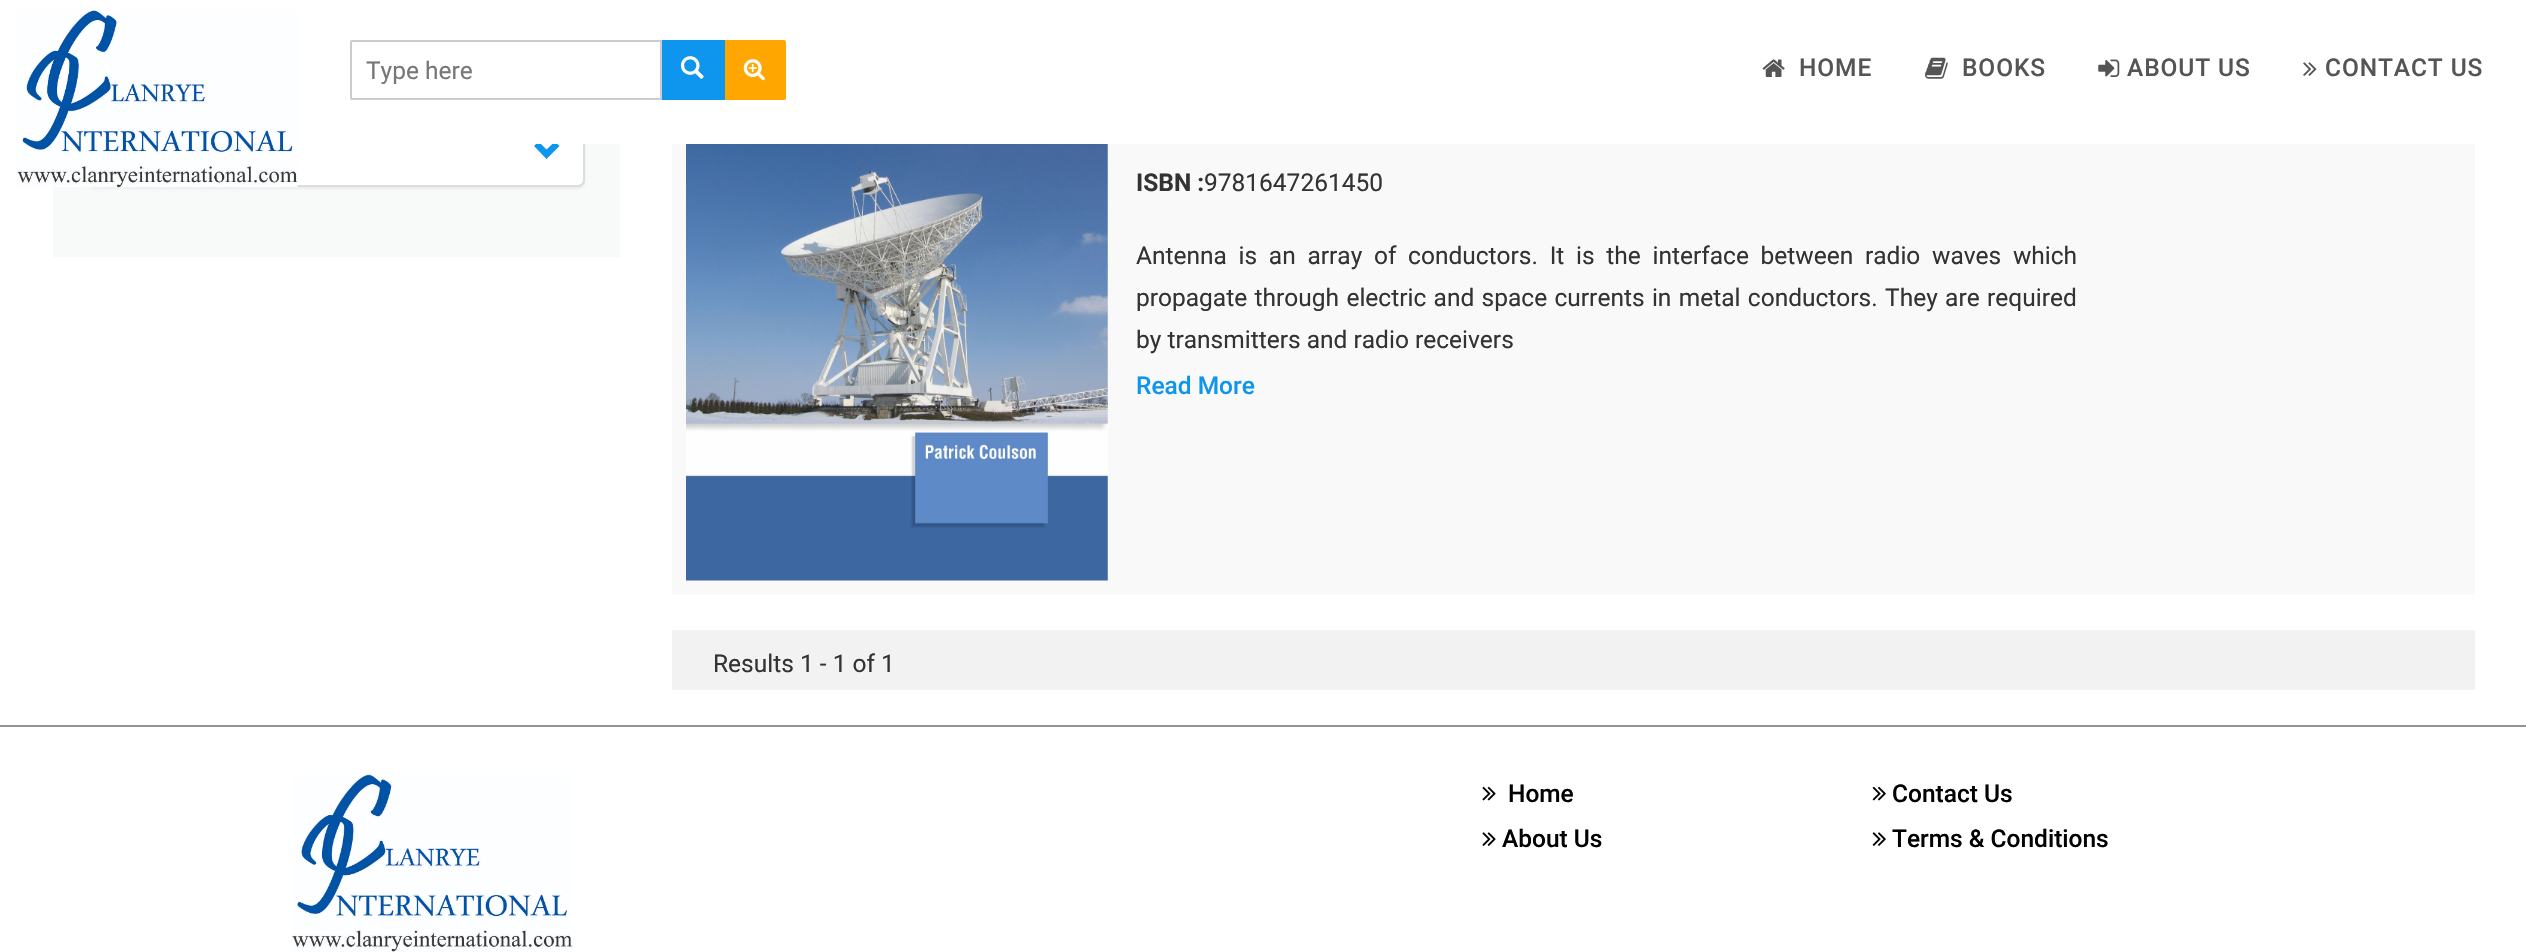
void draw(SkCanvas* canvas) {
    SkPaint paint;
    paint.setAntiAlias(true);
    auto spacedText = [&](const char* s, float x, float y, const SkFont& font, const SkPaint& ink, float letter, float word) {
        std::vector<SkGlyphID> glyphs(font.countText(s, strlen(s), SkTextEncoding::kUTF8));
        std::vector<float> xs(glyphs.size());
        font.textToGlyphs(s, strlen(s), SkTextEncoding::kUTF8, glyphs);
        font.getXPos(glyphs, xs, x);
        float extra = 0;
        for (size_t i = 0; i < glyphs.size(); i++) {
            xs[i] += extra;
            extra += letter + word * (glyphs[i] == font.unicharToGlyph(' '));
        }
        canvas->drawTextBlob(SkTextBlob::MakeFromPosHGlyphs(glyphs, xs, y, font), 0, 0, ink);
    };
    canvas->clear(0xFFFFFFFF);
    paint.setColor(0xFFF8F9F9);
    canvas->drawRect(SkRect::MakeXYWH(53, 144, 567, 113), paint);
    paint.setColor(0x0D000000);
    paint.setMaskFilter(SkMaskFilter::MakeBlur(kNormal_SkBlurStyle, 1));
    canvas->drawRoundRect(SkRect::MakeXYWH(88, 119, 497, 70), 7, 7, paint);
    paint.setMaskFilter(nullptr);
    paint.setColor(0xFFFFFFFF);
    canvas->drawRoundRect(SkRect::MakeXYWH(89, 118, 495, 68), 6, 6, paint);
    paint.setStyle(SkPaint::kStroke_Style);
    paint.setStrokeWidth(2);
    paint.setColor(0xFFDDDDDD);
    canvas->drawRoundRect(SkRect::MakeXYWH(89, 118, 495, 68), 6, 6, paint);
    paint.setStyle(SkPaint::kFill_Style);
    paint.setColor(0xFF0E95EE);
    canvas->drawPath(SkPathBuilder().moveTo(559.5f, 146).lineTo(546.5f, 159).lineTo(534, 146).lineTo(538.5f, 141.5f).lineTo(546.5f, 149.5f).lineTo(555, 141.5f).close().detach(), paint);
    paint.setColor(0xFFFFFFFF);
    canvas->drawRect(SkRect::MakeXYWH(87, 117, 499, 27), paint);
    canvas->drawImageRect(SkImages::DeferredFromEncodedData(SkData::MakeFromFileName("img1.png")), SkRect::MakeXYWH(17, 10, 281, 178), SkSamplingOptions());
    paint.setStyle(SkPaint::kStroke_Style);
    paint.setColor(0xFFCCCCCC);
    canvas->drawPath(SkPathBuilder().moveTo(352, 41).lineTo(661, 41).lineTo(661, 99).lineTo(352, 99).cubicTo(351.5f, 99, 351, 98.5f, 351, 98).lineTo(351, 42).cubicTo(351, 41.5f, 351.5f, 41, 352, 41).close().detach(), paint);
    canvas->save();
    canvas->clipRect(SkRect::MakeXYWH(366, 56, 280, 28));
    SkFont font1(fontMgr->matchFamilyStyle("Roboto", SkFontStyle::Normal()), 24.5f);
    font1.setSubpixel(true);
    paint.setStyle(SkPaint::kFill_Style);
    paint.setColor(0xFF777777);
    canvas->drawString("Type here", 366, 79, font1, paint);
    canvas->restore();
    paint.setColor(0xFF0E95EE);
    canvas->drawRect(SkRect::MakeXYWH(662, 40, 63, 60), paint);
    canvas->drawImageRect(SkImages::DeferredFromEncodedData(SkData::MakeFromFileName("img2.png")), SkRect::MakeXYWH(680, 56, 24, 23), SkSamplingOptions());
    paint.setColor(0xFFFFA600);
    canvas->drawPath(SkPathBuilder().moveTo(726, 41).lineTo(784, 41).cubicTo(784.5f, 41, 785, 41.5f, 785, 42).lineTo(785, 98).cubicTo(785, 98.5f, 784.5f, 99, 784, 99).lineTo(726, 99).close().detach(), paint);
    paint.setStyle(SkPaint::kStroke_Style);
    canvas->drawPath(SkPathBuilder().moveTo(726, 41).lineTo(784, 41).cubicTo(784.5f, 41, 785, 41.5f, 785, 42).lineTo(785, 98).cubicTo(785, 98.5f, 784.5f, 99, 784, 99).lineTo(726, 99).close().detach(), paint);
    canvas->drawImageRect(SkImages::DeferredFromEncodedData(SkData::MakeFromFileName("img3.png")), SkRect::MakeXYWH(743, 59, 22, 22), SkSamplingOptions());
    canvas->drawImageRect(SkImages::DeferredFromEncodedData(SkData::MakeFromFileName("img4.png")), SkRect::MakeXYWH(1762, 59, 23, 18), SkSamplingOptions());
    SkFont font2(fontMgr->matchFamilyStyle("Roboto", SkFontStyle(500, SkFontStyle::kNormal_Width, SkFontStyle::kUpright_Slant)), 24.5f);
    font2.setSubpixel(true);
    paint.setStyle(SkPaint::kFill_Style);
    paint.setColor(0xFF555555);
    spacedText("HOME", 1799, 76, font2, paint, 0.9f, 0);
    canvas->drawImageRect(SkImages::DeferredFromEncodedData(SkData::MakeFromFileName("img5.png")), SkRect::MakeXYWH(1925, 57, 23, 22), SkSamplingOptions());
    spacedText("BOOKS", 1962, 76, font2, paint, 0.9f, 0);
    canvas->drawImageRect(SkImages::DeferredFromEncodedData(SkData::MakeFromFileName("img6.png")), SkRect::MakeXYWH(2098, 59, 22, 18), SkSamplingOptions());
    spacedText("ABOUT US", 2127, 76, font2, paint, 0.9f, 0);
    canvas->drawImageRect(SkImages::DeferredFromEncodedData(SkData::MakeFromFileName("img7.png")), SkRect::MakeXYWH(2303, 62, 14, 14), SkSamplingOptions());
    spacedText("CONTACT US", 2325, 76, font2, paint, 0.9f, 0);
    paint.setColor(0xFFF9F9F9);
    canvas->drawRect(SkRect::MakeXYWH(672, 144, 1803, 451), paint);
    canvas->drawImageRect(SkImages::DeferredFromEncodedData(SkData::MakeFromFileName("img8.png")), SkRect::MakeXYWH(686, 144, 422, 437), SkSamplingOptions());
    SkFont font3(fontMgr->matchFamilyStyle("Roboto", SkFontStyle::Bold()), 24.5f);
    font3.setSubpixel(true);
    paint.setColor(0xFF333333);
    canvas->drawString("ISBN :", 1136, 191, font3, paint);
    canvas->drawString("9781647261450", 1204, 191, font1, paint);
    spacedText("Antenna is an array of conductors. It is the interface between radio waves which", 1136, 264, font1, paint, 0, 5.6f);
    spacedText("propagate through electric and space currents in metal conductors. They are required", 1136, 306, font1, paint, 0, 1.25f);
    canvas->drawString("by transmitters and radio receivers", 1136, 348, font1, paint);
    paint.setColor(0xFF0E95EE);
    canvas->drawString("Read More", 1136, 394, font2, paint);
    paint.setColor(0xFFF2F2F2);
    canvas->drawRect(SkRect::MakeXYWH(672, 630, 1803, 60), paint);
    paint.setColor(0xFF333333);
    canvas->drawString("Results 1 - 1 of 1", 713, 672, font1, paint);
    paint.setColor(0xFF939393);
    canvas->drawRect(SkRect::MakeXYWH(0, 725, 2526, 2), paint);
    canvas->drawImageRect(SkImages::DeferredFromEncodedData(SkData::MakeFromFileName("img9.png")), SkRect::MakeXYWH(292, 774, 281, 178), SkSamplingOptions());
    canvas->drawImageRect(SkImages::DeferredFromEncodedData(SkData::MakeFromFileName("img10.png")), SkRect::MakeXYWH(1482, 786, 14, 15), SkSamplingOptions());
    paint.setColor(0xFF000000);
    canvas->drawString("Home", 1508, 802, font2, paint);
    canvas->drawImageRect(SkImages::DeferredFromEncodedData(SkData::MakeFromFileName("img11.png")), SkRect::MakeXYWH(1482, 832, 14, 14), SkSamplingOptions());
    canvas->drawString("About Us", 1502, 847, font2, paint);
    canvas->drawImageRect(SkImages::DeferredFromEncodedData(SkData::MakeFromFileName("img12.png")), SkRect::MakeXYWH(1872, 786, 14, 15), SkSamplingOptions());
    canvas->drawString("Contact Us", 1892, 802, font2, paint);
    canvas->drawImageRect(SkImages::DeferredFromEncodedData(SkData::MakeFromFileName("img13.png")), SkRect::MakeXYWH(1872, 832, 14, 14), SkSamplingOptions());
    canvas->drawString("Terms & Conditions", 1892, 847, font2, paint);
}
